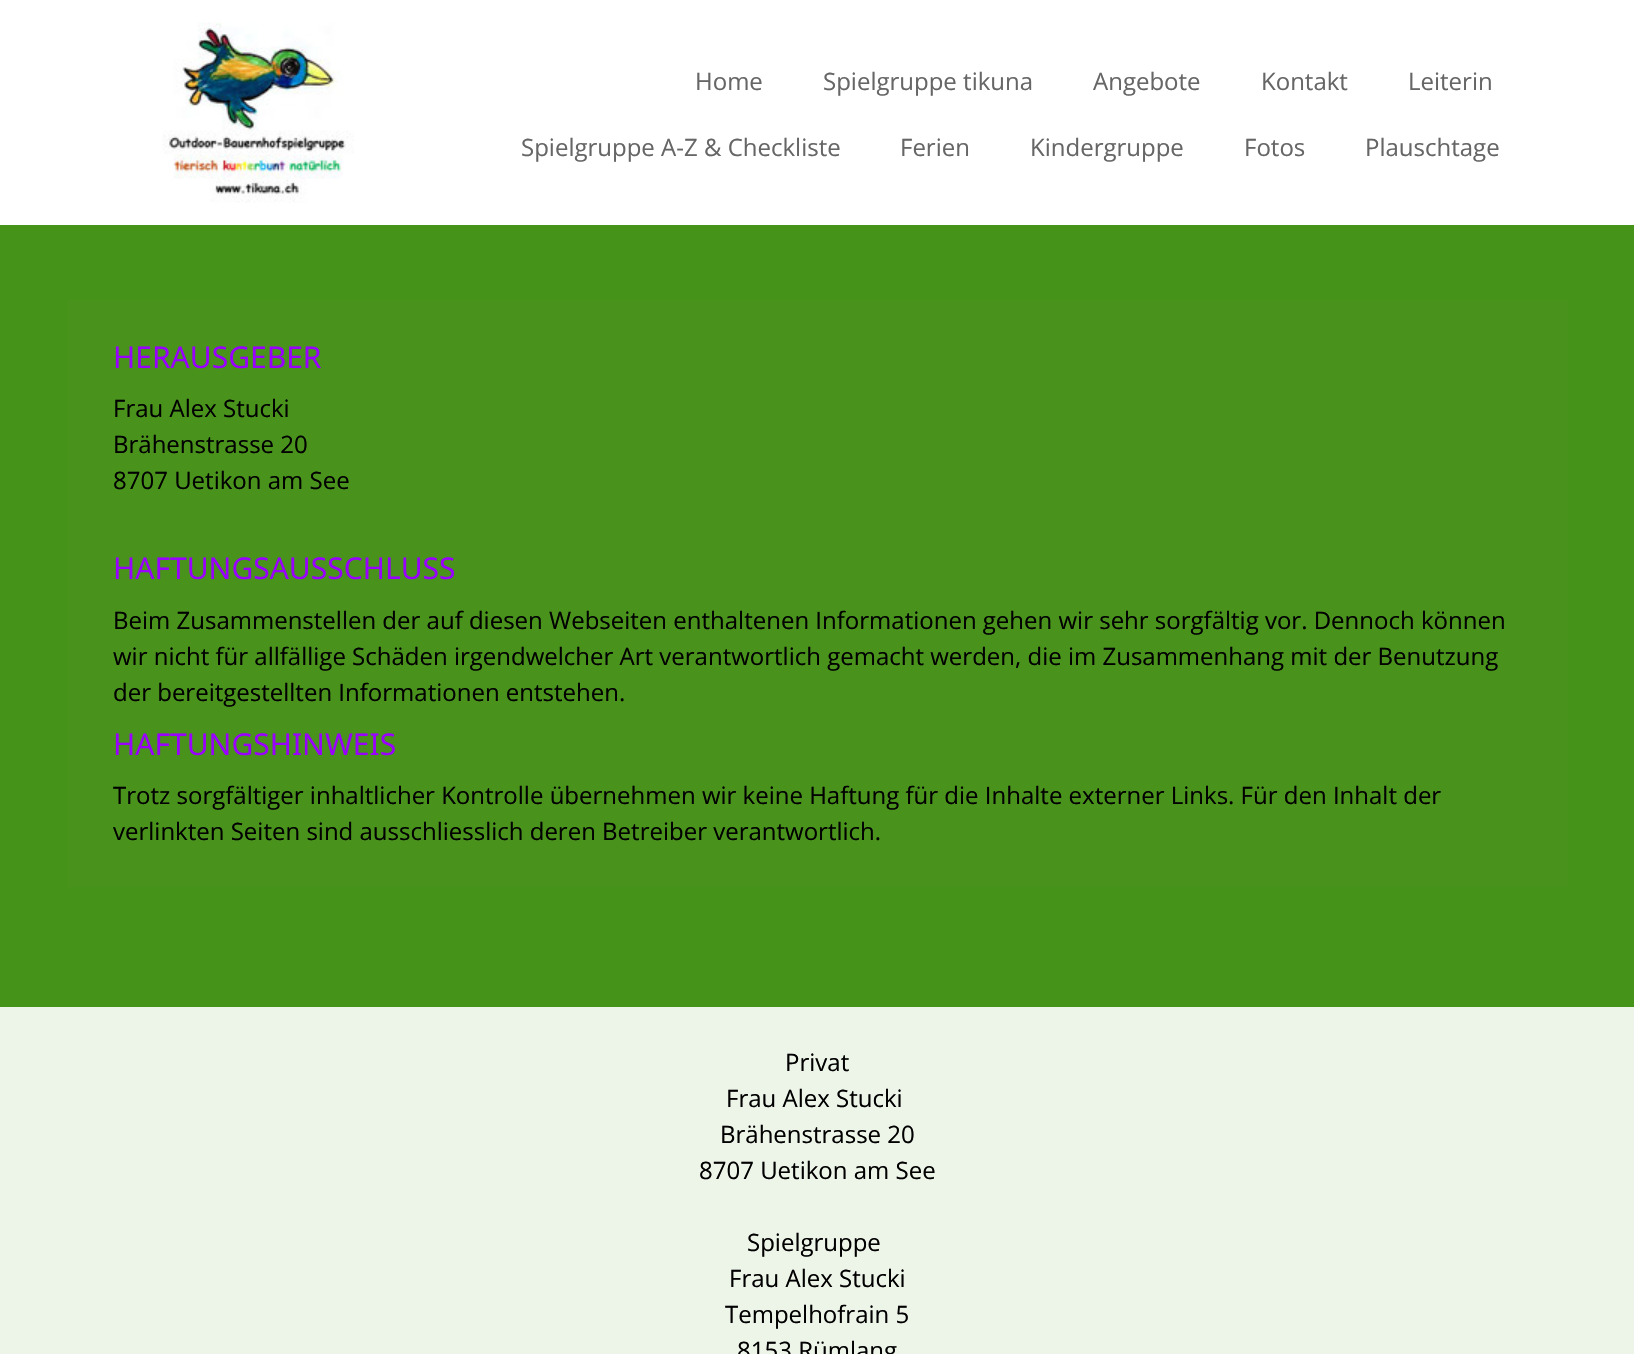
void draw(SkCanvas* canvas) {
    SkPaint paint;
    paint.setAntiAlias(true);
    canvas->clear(0xFF46931A);
    paint.setColor(0xFFFFFFFF);
    canvas->drawRect(SkRect::MakeXYWH(0, 0, 1634, 225), paint);
    canvas->drawImageRect(SkImages::DeferredFromEncodedData(SkData::MakeFromFileName("img1.png")), SkRect::MakeXYWH(162, 22, 192, 181), SkSamplingOptions());
    SkFont font1(fontMgr->matchFamilyStyle("Open Sans", SkFontStyle::Normal()), 24);
    font1.setSubpixel(true);
    paint.setColor(0xFF666666);
    canvas->drawString("Home", 695, 90, font1, paint);
    canvas->drawString("Spielgruppe tikuna", 823, 90, font1, paint);
    canvas->drawString("Angebote", 1093, 90, font1, paint);
    canvas->drawString("Kontakt", 1261, 90, font1, paint);
    canvas->drawString("Leiterin", 1408, 90, font1, paint);
    canvas->drawString("Spielgruppe A-Z & Checkliste", 521, 156, font1, paint);
    canvas->drawString("Ferien", 900, 156, font1, paint);
    canvas->drawString("Kindergruppe", 1030, 156, font1, paint);
    canvas->drawString("Fotos", 1244, 156, font1, paint);
    canvas->drawString("Plauschtage", 1365, 156, font1, paint);
    paint.setColor(0xFF49931C);
    canvas->drawRect(SkRect::MakeXYWH(68, 300, 1500, 587), paint);
    SkFont font2(fontMgr->matchFamilyStyle("Noto Sans", SkFontStyle::Normal()), 30);
    font2.setSubpixel(true);
    paint.setColor(0xFF9A00FF);
    canvas->drawString("HERAUSGEBER", 113, 368, font2, paint);
    paint.setColor(0xFF000000);
    canvas->drawString("Frau Alex Stucki", 113, 417, font1, paint);
    canvas->drawString("Brähenstrasse 20", 113, 453, font1, paint);
    canvas->drawString("8707 Uetikon am See", 113, 489, font1, paint);
    paint.setColor(0xFF9A00FF);
    canvas->drawString("HAFTUNGSAUSSCHLUSS", 113, 579, font2, paint);
    paint.setColor(0xFF000000);
    canvas->drawString("Beim Zusammenstellen der auf diesen Webseiten enthaltenen Informationen gehen wir sehr sorgfältig vor. Dennoch können", 113, 629, font1, paint);
    canvas->drawString("wir nicht für allfällige Schäden irgendwelcher Art verantwortlich gemacht werden, die im Zusammenhang mit der Benutzung", 113, 665, font1, paint);
    canvas->drawString("der bereitgestellten Informationen entstehen.", 113, 701, font1, paint);
    paint.setColor(0xFF9A00FF);
    canvas->drawString("HAFTUNGSHINWEIS", 113, 755, font2, paint);
    paint.setColor(0xFF000000);
    canvas->drawString("Trotz sorgfältiger inhaltlicher Kontrolle übernehmen wir keine Haftung für die Inhalte externer Links. Für den Inhalt der", 113, 804, font1, paint);
    canvas->drawString("verlinkten Seiten sind ausschliesslich deren Betreiber verantwortlich.", 113, 840, font1, paint);
    paint.setColor(0xFFEDF4E8);
    canvas->drawRect(SkRect::MakeXYWH(0, 1007, 1634, 347), paint);
    paint.setColor(0xFF000000);
    canvas->drawString("Privat", 785, 1071, font1, paint);
    canvas->drawString("Frau Alex Stucki", 726, 1107, font1, paint);
    canvas->drawString("Brähenstrasse 20", 720, 1143, font1, paint);
    canvas->drawString("8707 Uetikon am See", 699, 1179, font1, paint);
    canvas->drawString("Spielgruppe", 747, 1251, font1, paint);
    canvas->drawString("Frau Alex Stucki", 729, 1287, font1, paint);
    canvas->drawString("Tempelhofrain 5", 725, 1323, font1, paint);
    canvas->drawString("8153 Rümlang", 737, 1359, font1, paint);
}
